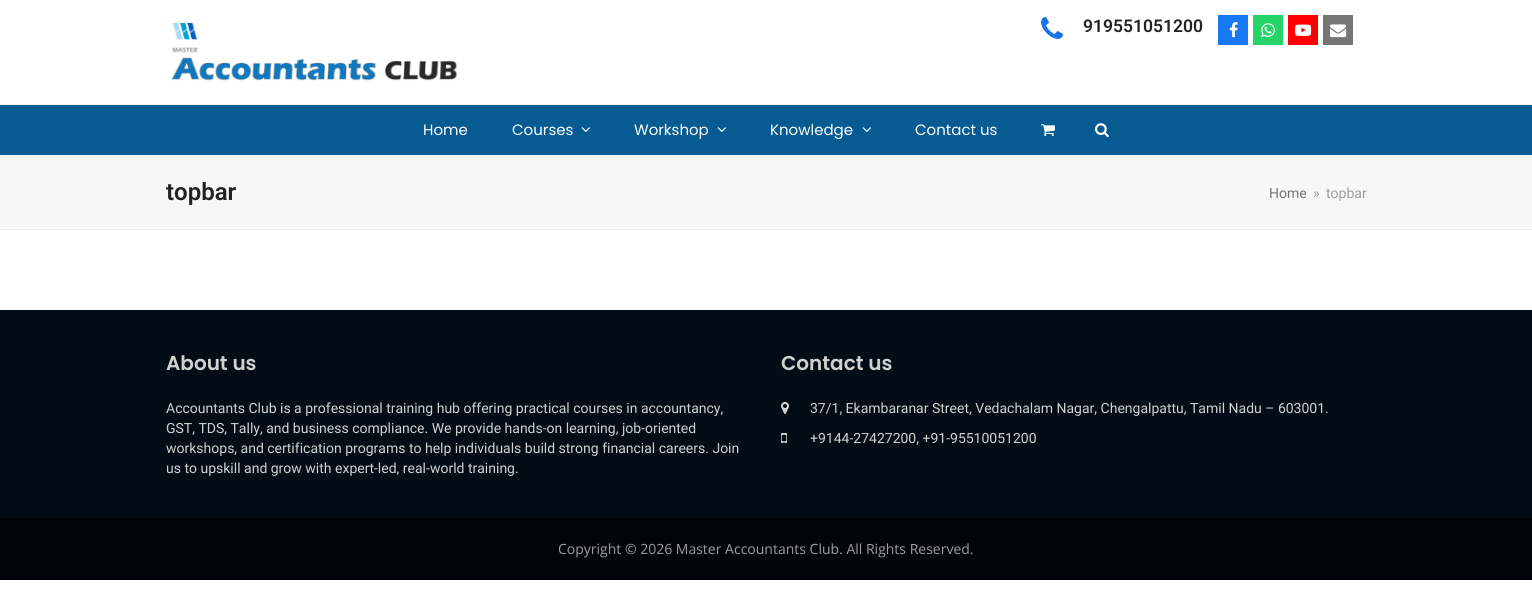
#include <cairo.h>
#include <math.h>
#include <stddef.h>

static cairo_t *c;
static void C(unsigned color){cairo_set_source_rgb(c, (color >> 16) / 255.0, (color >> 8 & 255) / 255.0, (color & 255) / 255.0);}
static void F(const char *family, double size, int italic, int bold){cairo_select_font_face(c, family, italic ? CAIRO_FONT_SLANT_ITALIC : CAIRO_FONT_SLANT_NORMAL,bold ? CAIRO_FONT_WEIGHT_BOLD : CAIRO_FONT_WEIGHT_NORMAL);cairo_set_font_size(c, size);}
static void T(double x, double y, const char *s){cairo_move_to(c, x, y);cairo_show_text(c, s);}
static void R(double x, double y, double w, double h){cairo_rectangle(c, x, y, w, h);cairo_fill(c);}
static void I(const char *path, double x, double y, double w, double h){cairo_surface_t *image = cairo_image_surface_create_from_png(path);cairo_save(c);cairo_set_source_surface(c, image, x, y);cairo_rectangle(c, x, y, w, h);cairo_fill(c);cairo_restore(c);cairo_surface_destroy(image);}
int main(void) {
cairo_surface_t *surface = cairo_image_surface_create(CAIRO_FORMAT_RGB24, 1532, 599);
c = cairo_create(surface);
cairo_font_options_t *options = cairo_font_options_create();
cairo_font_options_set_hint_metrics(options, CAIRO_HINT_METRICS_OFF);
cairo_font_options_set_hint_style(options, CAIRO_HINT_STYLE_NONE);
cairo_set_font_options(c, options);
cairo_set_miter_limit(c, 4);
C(0xffffff);
cairo_paint(c);
I("1.png",171,22,286,59);
I("2.png",1041,17,22,22);
F("Roboto SemiBold",17.5,0,0);
C(0x222222);
T(1083,32,"919551051200");
C(0x1877f2);
R(1218,15,30,30);
I("3.png",1229,22,9,16);
C(0x25d366);
R(1253,15,30,30);
I("4.png",1261,23,14,15);
C(0xff0000);
R(1288,15,30,30);
I("5.png",1295,24,17,12);
C(0x757575);
R(1323,15,30,30);
I("6.png",1330,24,17,14);
C(0x075b93);
R(0,105,1532,50);
C(0xeeeeee);
R(0,104,1532,1);
F("Poppins",15,0,0);
C(0xffffff);
T(423,135,"Home");
T(512,135,"Courses");
I("7.png",581,127,9,5);
T(634,135,"Workshop");
I("7.png",717,127,9,5);
T(770,135,"Knowledge");
I("7.png",862,127,9,5);
T(915,135,"Contact us");
I("8.png",1041,124,14,13);
I("9.png",1095,123,14,15);
C(0xf7f7f7);
R(0,156,1532,73);
C(0xeeeeee);
R(0,155,1532,1);
R(0,229,1532,1);
F("Roboto SemiBold",24,0,0);
C(0x222222);
T(166,200,"topbar");
F("Roboto",14,0,0);
C(0x757575);
T(1269,198,"Home");
C(0x9e9e9e);
T(1313,198,"»");
T(1326,198,"topbar");
C(0x010c17);
R(0,310,1532,208);
F("Poppins SemiBold",20,0,0);
C(0xd1d1d1);
T(166,370,"About us");
F("Roboto",14,0,0);
T(166,413,"Accountants Club is a professional training hub offering practical courses in accountancy,");
T(166,433,"GST, TDS, Tally, and business compliance. We provide hands-on learning, job-oriented");
T(166,453,"workshops, and certification programs to help individuals build strong financial careers. Join");
T(166,473,"us to upskill and grow with expert-led, real-world training.");
F("Poppins SemiBold",20,0,0);
T(781,370,"Contact us");
I("10.png",781,402,8,12);
F("Roboto",14,0,0);
T(810,413,"37/1, Ekambaranar Street, Vedachalam Nagar, Chengalpattu, Tamil Nadu – 603001.");
I("11.png",781,433,6,10);
T(810,443,"+9144-27427200, +91-95510051200");
C(0x00050a);
R(0,518,1532,62);
F("Open Sans",14,0,0);
C(0x9e9e9e);
T(558,554,"Copyright © 2026 Master Accountants Club. All Rights Reserved.");
cairo_surface_write_to_png(surface, "o.png");
cairo_font_options_destroy(options);
cairo_destroy(c);
cairo_surface_destroy(surface);
return 0;
}
